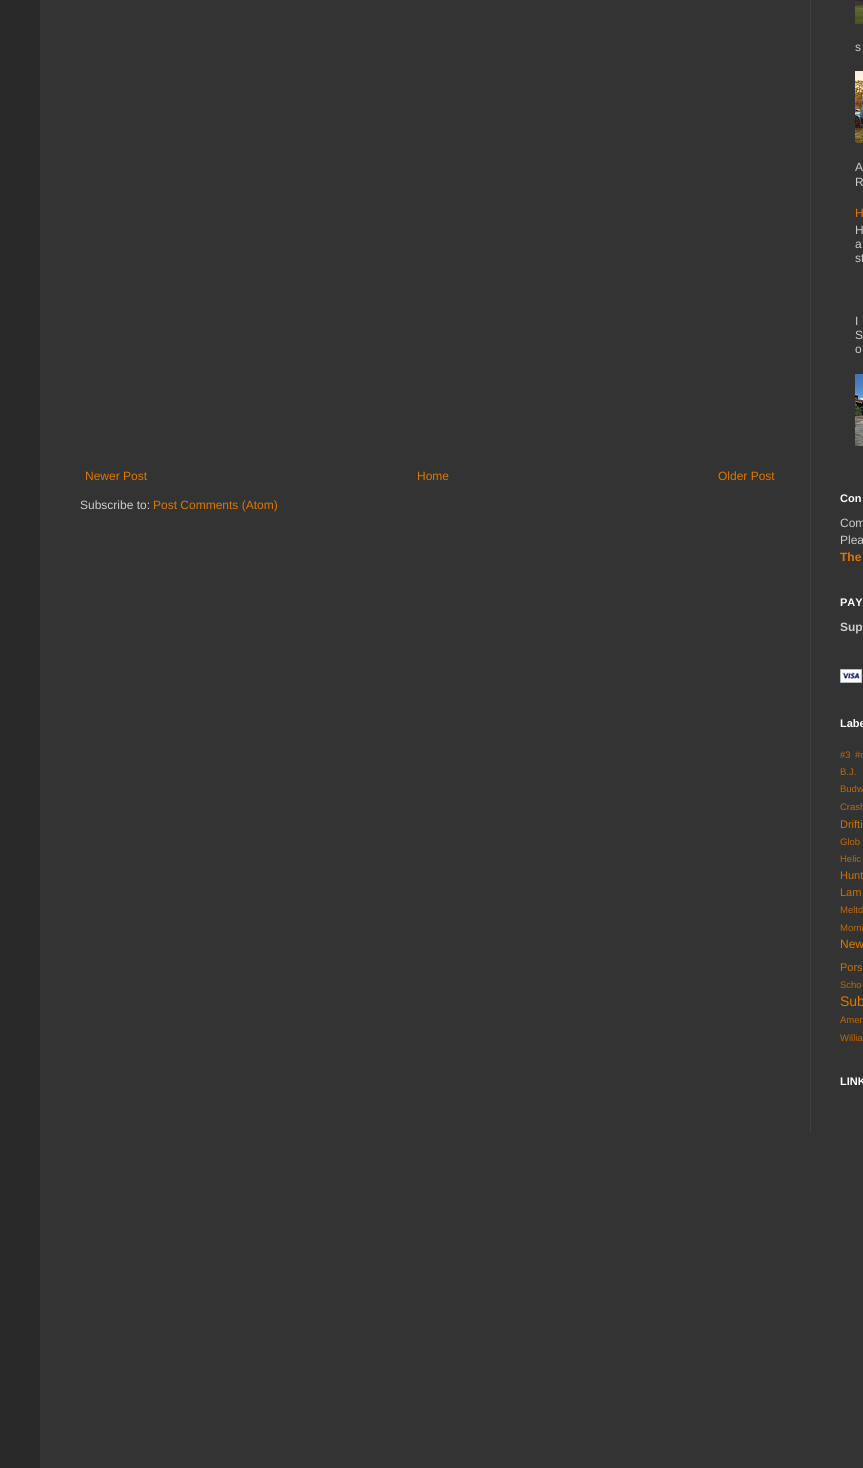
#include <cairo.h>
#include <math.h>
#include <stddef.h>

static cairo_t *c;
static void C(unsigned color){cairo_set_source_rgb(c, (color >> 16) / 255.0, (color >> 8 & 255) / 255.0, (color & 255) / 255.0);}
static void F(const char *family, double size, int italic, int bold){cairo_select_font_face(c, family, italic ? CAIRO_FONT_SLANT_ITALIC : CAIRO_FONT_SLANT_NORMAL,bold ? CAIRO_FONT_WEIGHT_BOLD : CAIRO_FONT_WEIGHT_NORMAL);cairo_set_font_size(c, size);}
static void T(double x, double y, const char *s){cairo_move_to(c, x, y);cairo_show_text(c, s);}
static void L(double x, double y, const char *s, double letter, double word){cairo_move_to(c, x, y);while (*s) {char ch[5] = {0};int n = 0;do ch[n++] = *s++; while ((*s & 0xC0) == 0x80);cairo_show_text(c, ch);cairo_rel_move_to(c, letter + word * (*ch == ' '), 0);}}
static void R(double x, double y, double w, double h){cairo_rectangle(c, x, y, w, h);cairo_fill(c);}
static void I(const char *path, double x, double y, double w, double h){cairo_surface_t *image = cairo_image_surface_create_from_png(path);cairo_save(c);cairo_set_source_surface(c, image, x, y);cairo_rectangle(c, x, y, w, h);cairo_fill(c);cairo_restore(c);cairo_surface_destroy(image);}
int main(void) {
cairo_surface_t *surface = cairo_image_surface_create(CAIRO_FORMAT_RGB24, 863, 1468);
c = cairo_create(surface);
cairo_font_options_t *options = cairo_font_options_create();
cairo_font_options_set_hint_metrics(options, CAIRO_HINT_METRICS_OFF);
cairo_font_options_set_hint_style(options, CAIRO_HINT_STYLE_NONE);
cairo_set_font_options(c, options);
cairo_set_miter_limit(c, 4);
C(0x292929);
cairo_paint(c);
C(0x333333);
R(40,0,823,1468);
C(0x404040);
R(810,0,1,1132);
F("Liberation Sans",12,0,0);
C(0xdd7700);
T(85,480,"Newer Post");
T(417,480,"Home");
T(718,480,"Older Post");
C(0xcccccc);
T(80,509,"Subscribe to:");
C(0xdd7700);
T(153,509,"Post Comments (Atom)");
I("1.png",855,0,8,24);
C(0xcccccc);
T(855,51,"s");
I("2.png",855,71,8,72);
T(855,171,"A");
T(855,186,"R");
C(0xdd7700);
T(855,217,"H");
C(0xcccccc);
T(855,234,"H");
T(855,248,"a");
T(855,262,"st");
T(855,325,"I");
T(855,339,"S");
T(855,353,"o");
I("3.png",855,374,8,72);
F("Liberation Sans",11,0,1);
C(0xffffff);
T(840,502,"Con");
F("Liberation Sans",12,0,0);
C(0xcccccc);
T(840,527,"Com");
T(840,544,"Plea");
F("Liberation Sans",12,0,1);
C(0xdd7700);
T(840,561,"The");
F("Liberation Sans",11,0,1);
C(0xffffff);
T(840,606,"PAY");
F("Liberation Sans",12,0,1);
C(0xcccccc);
T(840,631,"Sup");
I("4.png",840,669,22,14);
F("Liberation Sans",11,0,1);
C(0xffffff);
T(840,727,"Labe");
F("Liberation Sans",9.5,0,0);
C(0xbb690a);
T(840,758,"#3");
T(855,758,"#c");
L(840,775,"B.J.",0,5);
L(840,792,"Budw",0,5);
T(840,810,"Crash");
F("Liberation Sans",11,0,0);
C(0xcc7005);
T(840,828,"Drifti");
F("Liberation Sans",9.5,0,0);
C(0xbb690a);
L(840,845,"Glob",0,1);
T(840,862,"Helic");
F("Liberation Sans",11,0,0);
C(0xcc7005);
T(840,879,"Hunt");
T(840,896,"Lam");
F("Liberation Sans",9.5,0,0);
C(0xbb690a);
T(840,913,"Meltd");
T(840,931,"Morni");
F("Liberation Sans",12,0,0);
C(0xdd7700);
T(840,948,"New");
F("Liberation Sans",11,0,0);
C(0xcc7005);
T(840,971,"Pors");
F("Liberation Sans",9.5,0,0);
C(0xbb690a);
T(840,988,"Scho");
F("Liberation Sans",14,0,0);
C(0xdd7700);
T(840,1006,"Sub");
F("Liberation Sans",9.5,0,0);
C(0xbb690a);
T(840,1023,"Amer");
T(840,1041,"Willia");
F("Liberation Sans",11,0,1);
C(0xffffff);
T(840,1085,"LINK");
cairo_surface_write_to_png(surface, "o.png");
cairo_font_options_destroy(options);
cairo_destroy(c);
cairo_surface_destroy(surface);
return 0;
}
